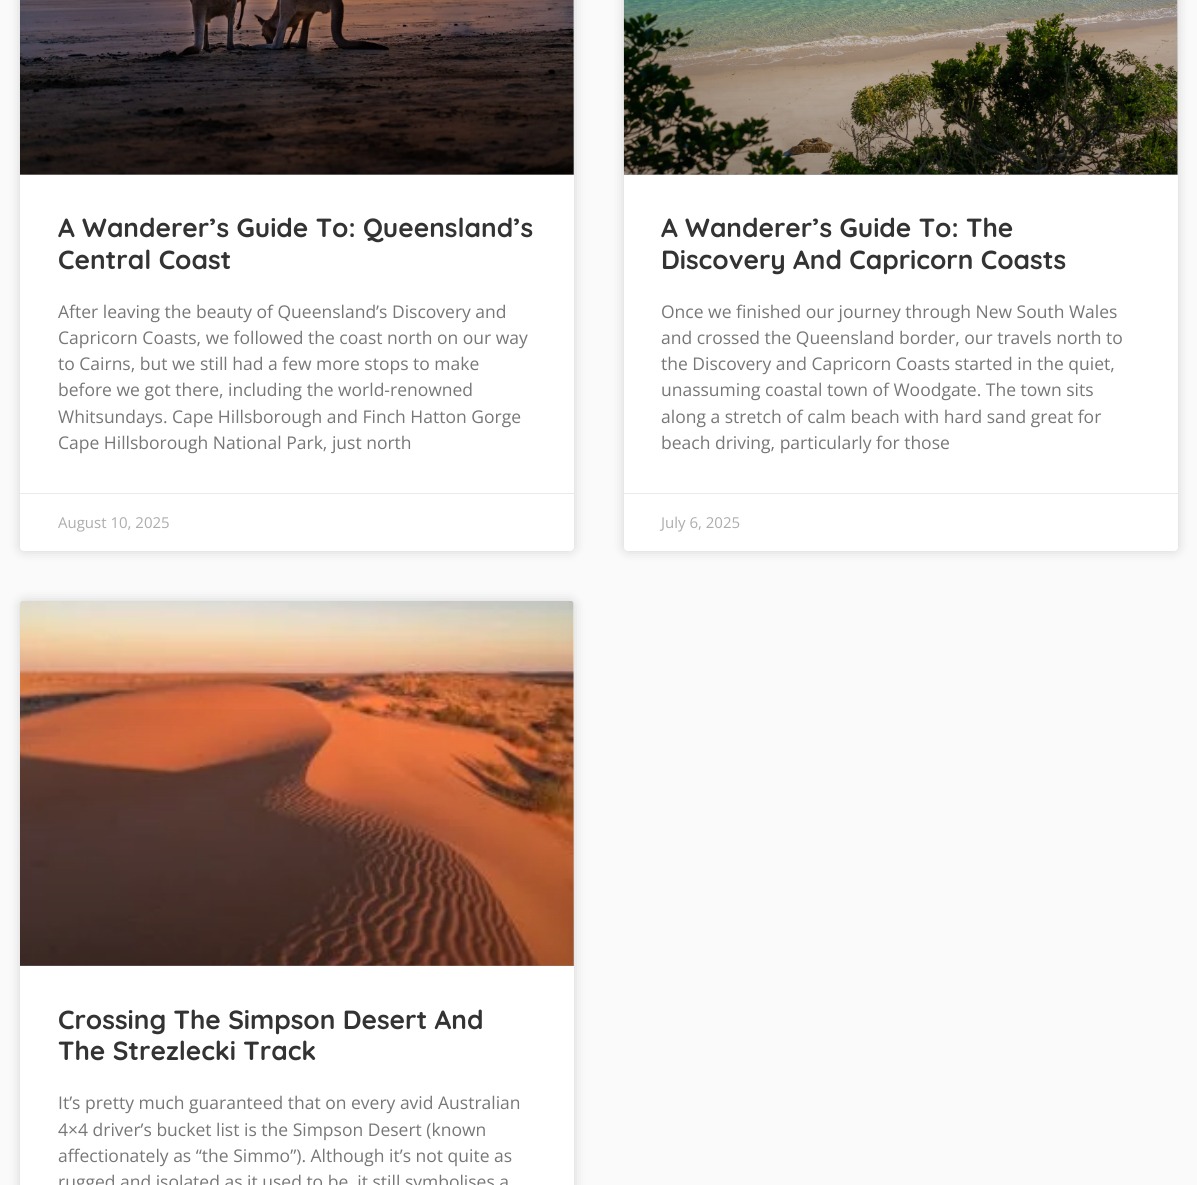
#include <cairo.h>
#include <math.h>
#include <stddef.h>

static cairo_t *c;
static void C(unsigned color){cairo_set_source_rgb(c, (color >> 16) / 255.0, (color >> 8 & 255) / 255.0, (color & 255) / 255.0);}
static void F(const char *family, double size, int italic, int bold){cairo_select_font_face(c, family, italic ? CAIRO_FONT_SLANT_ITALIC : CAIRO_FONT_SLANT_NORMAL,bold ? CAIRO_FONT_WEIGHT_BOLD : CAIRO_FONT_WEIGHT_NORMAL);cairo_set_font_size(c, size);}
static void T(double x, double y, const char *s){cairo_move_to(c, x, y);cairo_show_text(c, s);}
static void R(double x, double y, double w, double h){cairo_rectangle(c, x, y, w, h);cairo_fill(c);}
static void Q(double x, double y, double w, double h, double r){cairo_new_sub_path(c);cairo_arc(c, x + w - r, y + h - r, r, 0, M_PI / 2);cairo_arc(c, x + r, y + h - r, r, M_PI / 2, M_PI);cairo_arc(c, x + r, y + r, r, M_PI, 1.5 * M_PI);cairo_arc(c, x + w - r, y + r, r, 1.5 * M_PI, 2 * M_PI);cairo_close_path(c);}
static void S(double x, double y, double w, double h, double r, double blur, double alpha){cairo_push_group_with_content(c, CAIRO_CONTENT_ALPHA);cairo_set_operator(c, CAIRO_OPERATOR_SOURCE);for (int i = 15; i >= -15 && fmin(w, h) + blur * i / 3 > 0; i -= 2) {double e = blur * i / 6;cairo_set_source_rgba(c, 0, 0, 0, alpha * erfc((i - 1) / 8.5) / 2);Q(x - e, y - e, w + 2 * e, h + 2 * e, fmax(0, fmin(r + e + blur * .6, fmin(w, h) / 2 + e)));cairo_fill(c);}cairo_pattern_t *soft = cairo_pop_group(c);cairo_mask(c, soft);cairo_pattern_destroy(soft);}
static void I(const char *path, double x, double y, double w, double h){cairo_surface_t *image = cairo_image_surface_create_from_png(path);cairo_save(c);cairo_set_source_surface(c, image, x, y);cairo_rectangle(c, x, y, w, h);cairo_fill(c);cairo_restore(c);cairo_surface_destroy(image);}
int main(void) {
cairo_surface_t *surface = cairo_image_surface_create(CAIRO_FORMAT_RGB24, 1197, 1185);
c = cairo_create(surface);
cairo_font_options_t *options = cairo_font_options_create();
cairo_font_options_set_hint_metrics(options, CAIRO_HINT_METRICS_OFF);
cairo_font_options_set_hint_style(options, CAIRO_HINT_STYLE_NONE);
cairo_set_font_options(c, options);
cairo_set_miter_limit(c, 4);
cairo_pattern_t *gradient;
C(0xfafafa);
cairo_paint(c);
C(0x000000);
S(20,-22,554,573,4,6,.15);
C(0xffffff);
Q(20,-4,554,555,4);
cairo_fill(c);
I("1.png",20,0,554,175);
gradient = cairo_pattern_create_linear(297,175,297,-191);
cairo_pattern_add_color_stop_rgba(gradient,0,0,0,0,.35);
cairo_pattern_add_color_stop_rgba(gradient,.75,0,0,0,0);
cairo_set_source(c,gradient);
cairo_pattern_destroy(gradient);
R(20,0,554,175);
F("Quicksand",26.25,0,1);
C(0x333333);
T(58,237,"A Wanderer’s Guide To: Queensland’s");
T(58,269,"Central Coast");
F("Open Sans",17.5,0,0);
C(0x777777);
T(58,318,"After leaving the beauty of Queensland’s Discovery and");
T(58,344,"Capricorn Coasts, we followed the coast north on our way");
T(58,370,"to Cairns, but we still had a few more stops to make");
T(58,396,"before we got there, including the world-renowned");
T(58,423,"Whitsundays. Cape Hillsborough and Finch Hatton Gorge");
T(58,449,"Cape Hillsborough National Park, just north");
C(0xeaeaea);
R(20,493,554,1);
F("Open Sans",15,0,0);
C(0xadadad);
T(58,528,"August 10, 2025");
C(0x000000);
S(624,-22,554,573,4,6,.15);
C(0xffffff);
Q(624,-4,554,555,4);
cairo_fill(c);
I("2.png",623,0,555,175);
gradient = cairo_pattern_create_linear(901,175,901,-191);
cairo_pattern_add_color_stop_rgba(gradient,0,0,0,0,.35);
cairo_pattern_add_color_stop_rgba(gradient,.75,0,0,0,0);
cairo_set_source(c,gradient);
cairo_pattern_destroy(gradient);
R(624,0,554,175);
F("Quicksand",26.25,0,1);
C(0x333333);
T(661,237,"A Wanderer’s Guide To: The");
T(661,269,"Discovery And Capricorn Coasts");
F("Open Sans",17.5,0,0);
C(0x777777);
T(661,318,"Once we finished our journey through New South Wales");
T(661,344,"and crossed the Queensland border, our travels north to");
T(661,370,"the Discovery and Capricorn Coasts started in the quiet,");
T(661,396,"unassuming coastal town of Woodgate. The town sits");
T(661,423,"along a stretch of calm beach with hard sand great for");
T(661,449,"beach driving, particularly for those");
C(0xeaeaea);
R(624,493,554,1);
F("Open Sans",15,0,0);
C(0xadadad);
T(661,528,"July 6, 2025");
C(0x000000);
S(20,601,554,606,4,6,.15);
C(0xffffff);
Q(20,601,554,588,4);
cairo_fill(c);
I("3.png",20,601,554,365);
gradient = cairo_pattern_create_linear(297,966,297,601);
cairo_pattern_add_color_stop_rgba(gradient,0,0,0,0,.35);
cairo_pattern_add_color_stop_rgba(gradient,.75,0,0,0,0);
cairo_set_source(c,gradient);
cairo_pattern_destroy(gradient);
R(20,709,554,257);
F("Quicksand",26.25,0,1);
C(0x333333);
T(58,1029,"Crossing The Simpson Desert And");
T(58,1060,"The Strezlecki Track");
F("Open Sans",17.5,0,0);
C(0x777777);
T(58,1109,"It’s pretty much guaranteed that on every avid Australian");
T(58,1136,"4×4 driver’s bucket list is the Simpson Desert (known");
T(58,1162,"affectionately as “the Simmo”). Although it’s not quite as");
T(58,1188,"rugged and isolated as it used to be, it still symbolises a");
cairo_surface_write_to_png(surface, "o.png");
cairo_font_options_destroy(options);
cairo_destroy(c);
cairo_surface_destroy(surface);
return 0;
}
